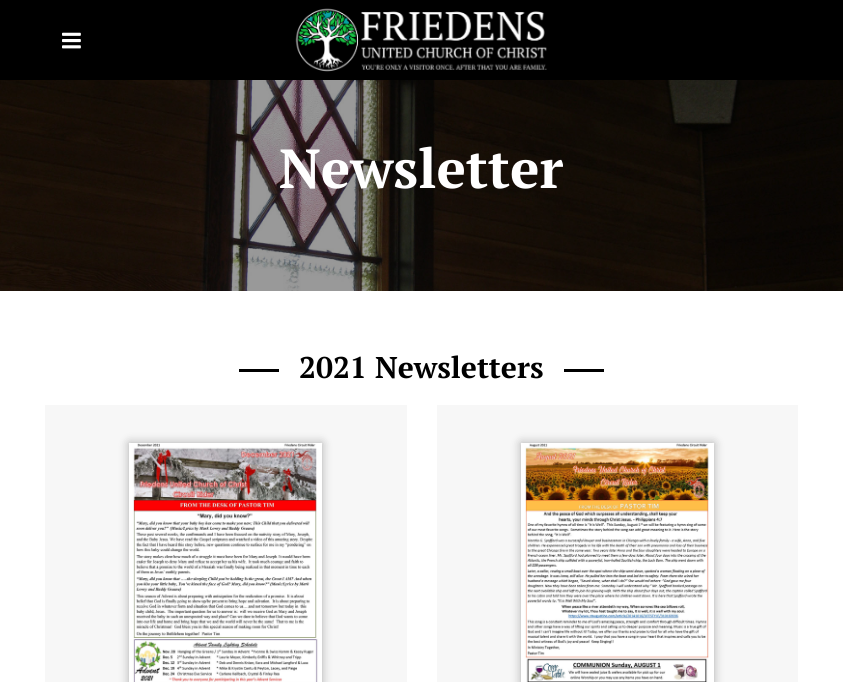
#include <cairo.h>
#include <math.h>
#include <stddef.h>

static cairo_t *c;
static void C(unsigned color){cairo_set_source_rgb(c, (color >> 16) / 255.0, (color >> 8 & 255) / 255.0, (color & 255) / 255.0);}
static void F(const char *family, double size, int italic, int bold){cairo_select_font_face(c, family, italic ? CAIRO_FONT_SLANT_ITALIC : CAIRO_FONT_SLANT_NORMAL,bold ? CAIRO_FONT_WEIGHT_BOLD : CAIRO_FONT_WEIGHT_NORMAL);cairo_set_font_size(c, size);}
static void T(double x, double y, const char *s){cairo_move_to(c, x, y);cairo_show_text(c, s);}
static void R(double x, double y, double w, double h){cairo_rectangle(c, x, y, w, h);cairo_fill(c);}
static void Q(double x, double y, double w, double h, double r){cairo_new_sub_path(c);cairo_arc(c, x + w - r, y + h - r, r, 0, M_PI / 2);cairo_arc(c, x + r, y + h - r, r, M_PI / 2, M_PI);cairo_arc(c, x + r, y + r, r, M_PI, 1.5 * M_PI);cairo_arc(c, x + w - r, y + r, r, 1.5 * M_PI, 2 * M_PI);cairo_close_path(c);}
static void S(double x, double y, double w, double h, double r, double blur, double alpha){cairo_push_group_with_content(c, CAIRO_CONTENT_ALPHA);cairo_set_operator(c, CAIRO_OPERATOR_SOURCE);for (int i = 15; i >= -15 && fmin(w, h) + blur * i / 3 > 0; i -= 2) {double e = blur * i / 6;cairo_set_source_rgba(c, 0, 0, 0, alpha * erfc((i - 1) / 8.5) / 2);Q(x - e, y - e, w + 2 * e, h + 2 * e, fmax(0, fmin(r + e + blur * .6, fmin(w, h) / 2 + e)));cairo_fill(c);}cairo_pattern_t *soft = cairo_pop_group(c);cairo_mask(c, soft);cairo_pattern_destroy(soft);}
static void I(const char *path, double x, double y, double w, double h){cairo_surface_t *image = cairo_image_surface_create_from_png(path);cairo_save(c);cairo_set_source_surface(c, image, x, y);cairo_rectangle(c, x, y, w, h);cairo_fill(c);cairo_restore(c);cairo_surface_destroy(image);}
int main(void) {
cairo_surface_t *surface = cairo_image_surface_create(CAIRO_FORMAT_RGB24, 843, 682);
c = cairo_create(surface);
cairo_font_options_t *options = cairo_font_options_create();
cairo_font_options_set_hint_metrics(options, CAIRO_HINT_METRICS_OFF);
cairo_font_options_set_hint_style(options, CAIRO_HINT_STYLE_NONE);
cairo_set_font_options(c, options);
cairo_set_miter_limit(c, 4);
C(0xffffff);
cairo_paint(c);
C(0x000000);
R(0,0,843,80);
I("1.png",62,32,19,17);
I("2.png",295,8,252,64);
I("3.png",0,80,843,211);
F("PT Serif",55,0,1);
C(0xffffff);
T(279,188,"Newsletter");
C(0x000000);
R(239,369,40,3);
F("PT Serif",30,0,1);
T(299,378,"2021 Newsletters");
R(564,369,40,3);
C(0xf7f7f7);
R(45,405,362,277);
C(0x000000);
S(129,443,193,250,0,5,.3);
I("4.png",129,443,193,239);
C(0xf7f7f7);
R(437,405,361,277);
C(0x000000);
S(521,443,193,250,0,5,.3);
I("5.png",521,443,193,239);
cairo_surface_write_to_png(surface, "o.png");
cairo_font_options_destroy(options);
cairo_destroy(c);
cairo_surface_destroy(surface);
return 0;
}
